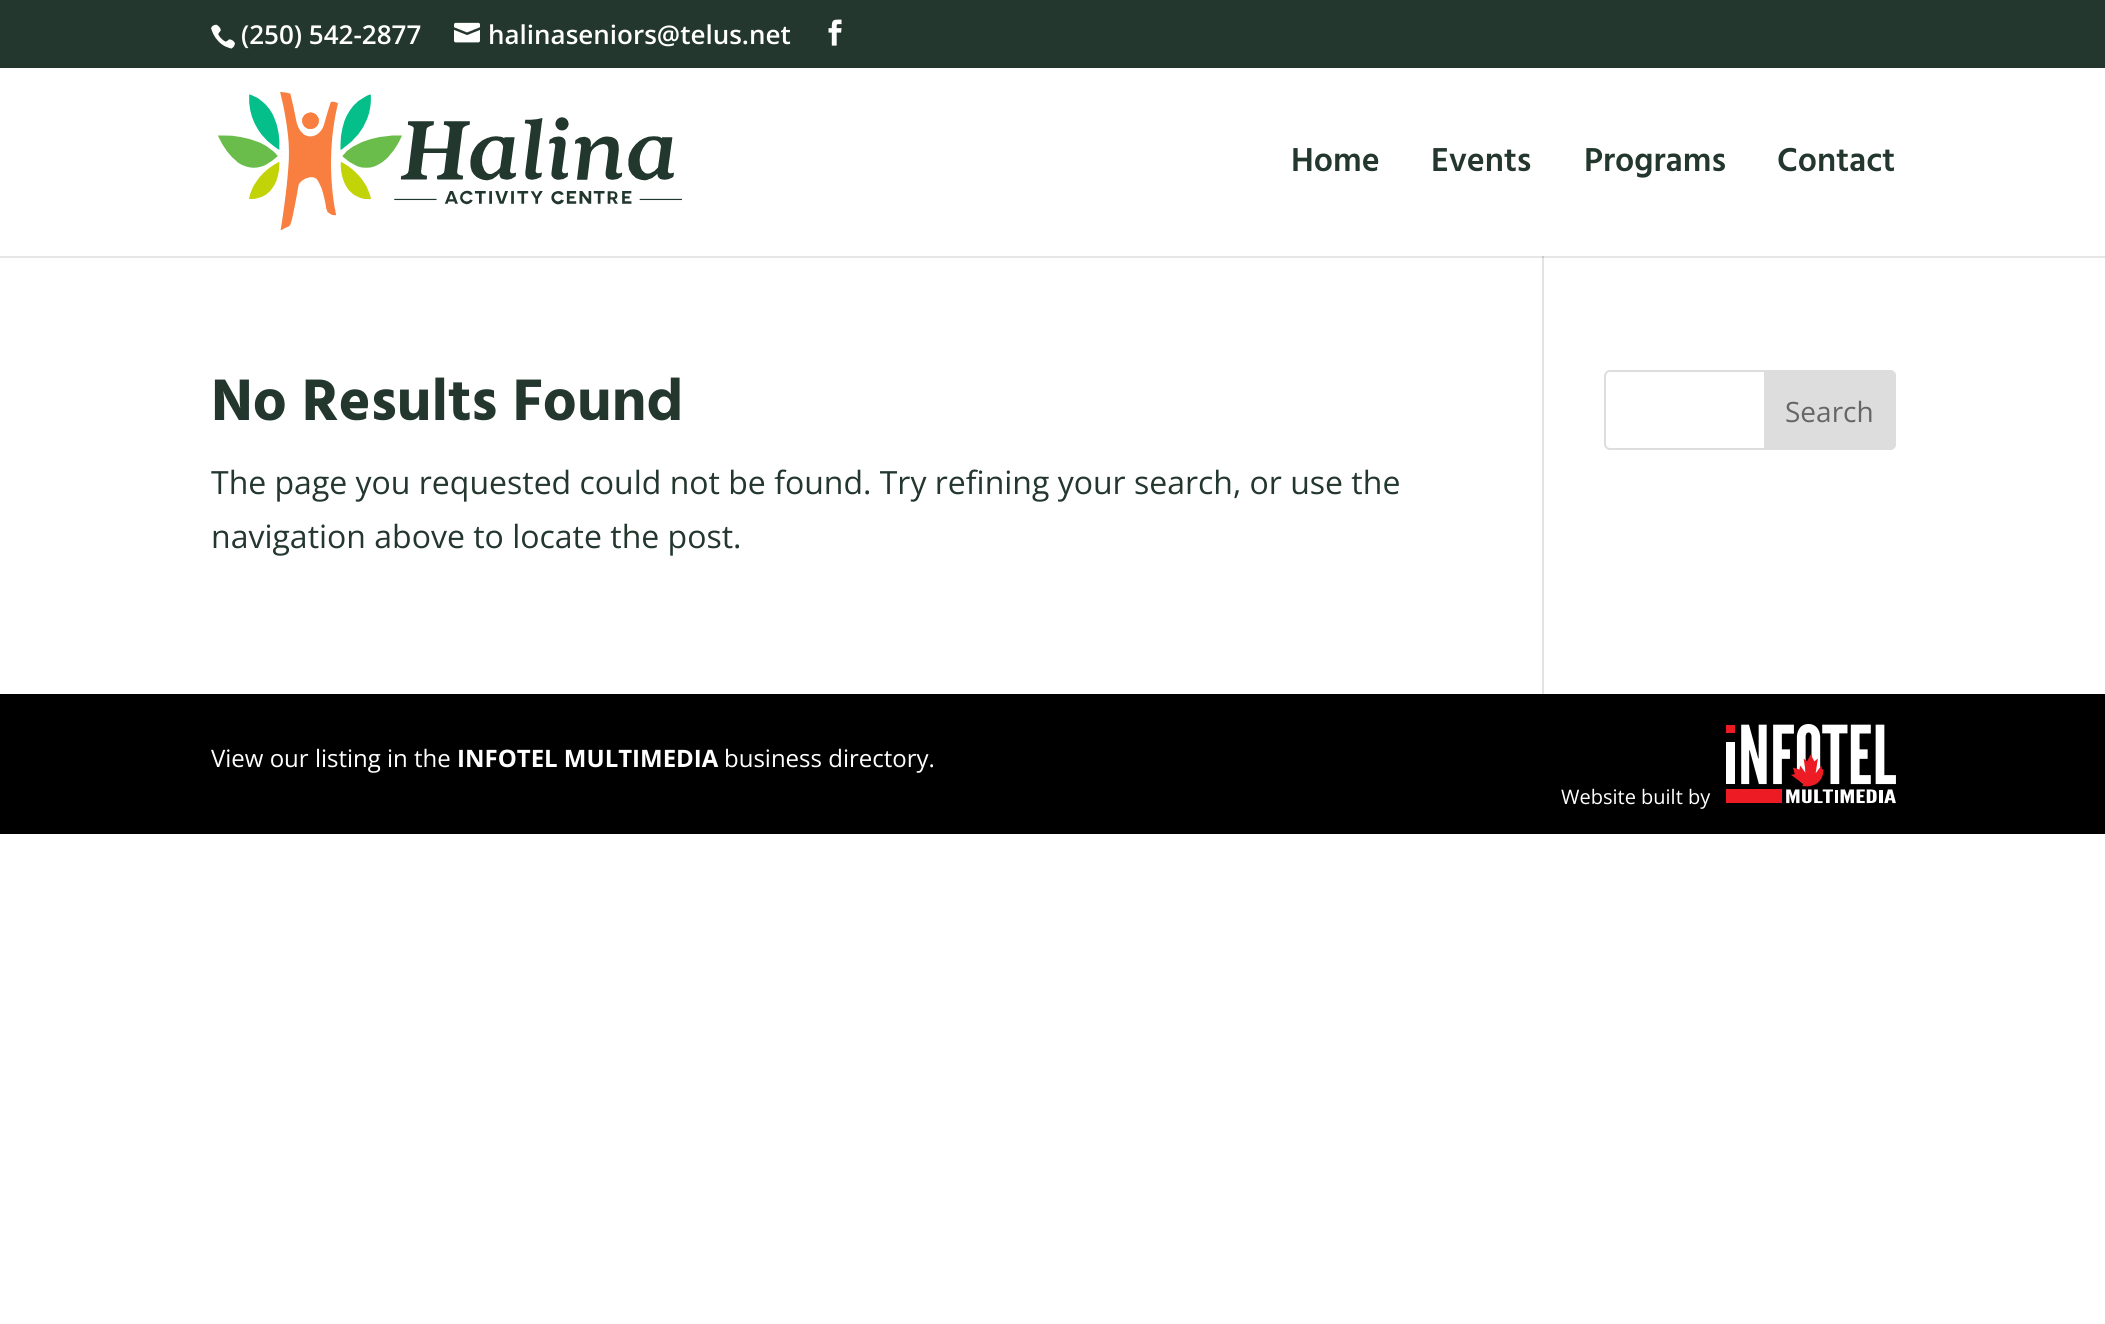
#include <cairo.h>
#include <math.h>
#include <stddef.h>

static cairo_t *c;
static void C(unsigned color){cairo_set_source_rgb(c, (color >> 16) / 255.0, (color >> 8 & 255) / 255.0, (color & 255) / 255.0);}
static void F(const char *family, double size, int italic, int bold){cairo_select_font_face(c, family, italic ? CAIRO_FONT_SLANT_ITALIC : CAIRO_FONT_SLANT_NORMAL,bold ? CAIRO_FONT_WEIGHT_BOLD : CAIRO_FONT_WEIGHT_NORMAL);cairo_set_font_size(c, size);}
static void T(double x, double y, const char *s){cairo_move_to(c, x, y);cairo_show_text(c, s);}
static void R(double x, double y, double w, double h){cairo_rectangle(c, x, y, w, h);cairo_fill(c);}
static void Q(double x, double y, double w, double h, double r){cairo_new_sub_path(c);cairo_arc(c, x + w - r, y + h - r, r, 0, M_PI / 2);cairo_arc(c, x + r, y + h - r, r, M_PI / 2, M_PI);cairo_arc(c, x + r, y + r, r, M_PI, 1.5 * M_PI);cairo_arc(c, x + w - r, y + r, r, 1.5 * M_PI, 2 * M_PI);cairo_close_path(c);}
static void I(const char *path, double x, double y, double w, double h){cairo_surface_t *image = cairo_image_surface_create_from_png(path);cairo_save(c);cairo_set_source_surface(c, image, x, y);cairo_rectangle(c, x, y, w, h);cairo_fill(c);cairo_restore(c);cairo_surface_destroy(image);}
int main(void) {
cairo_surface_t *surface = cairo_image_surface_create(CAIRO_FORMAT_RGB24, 2105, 1324);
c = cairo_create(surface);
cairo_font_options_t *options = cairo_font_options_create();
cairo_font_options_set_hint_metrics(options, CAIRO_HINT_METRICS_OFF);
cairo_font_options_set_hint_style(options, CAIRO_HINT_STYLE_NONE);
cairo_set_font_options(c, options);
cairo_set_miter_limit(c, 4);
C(0xffffff);
cairo_paint(c);
C(0xe6e6e6);
R(0,256,2105,2);
C(0x23372e);
R(0,0,2105,68);
I("1.png",211,24,24,25);
F("Open Sans SemiBold",26,0,0);
C(0xffffff);
T(241,44,"(250) 542-2877");
I("2.png",454,22,26,21);
T(488,44,"halinaseniors@telus.net");
I("3.png",828,19,14,27);
C(0xe2e2e2);
R(1542,254,2,440);
C(0xffffff);
R(1542,254,2,2);
I("4.png",218,92,464,138);
F("Hind Siliguri SemiBold",34,0,0);
C(0x23372e);
T(1291,171,"Home");
T(1431,171,"Events");
T(1584,171,"Programs");
T(1777,171,"Contact");
C(0xcbcbcb);
R(1542,256,2,2);
F("Hind Siliguri",60,0,1);
C(0x23372e);
T(211,420,"No Results Found");
F("Open Sans",32,0,0);
T(211,494,"The page you requested could not be found. Try refining your search, or use the");
T(211,548,"navigation above to locate the post.");
Q(1605,371,290,78,5);
C(0xdddddd);
cairo_stroke(c);
cairo_new_path(c);
cairo_move_to(c,1765,371);
cairo_line_to(c,1890,371);
cairo_curve_to(c,1893,371,1895,373,1895,376);
cairo_line_to(c,1895,444);
cairo_curve_to(c,1895,447,1893,449,1890,449);
cairo_line_to(c,1765,449);
cairo_close_path(c);
cairo_fill_preserve(c);
cairo_stroke(c);
F("Open Sans",28,0,0);
C(0x666666);
T(1785,422,"Search");
C(0x000000);
R(0,694,2105,140);
F("Open Sans",24,0,0);
C(0xffffff);
T(211,767,"View our listing in the");
F("Open Sans",24,0,1);
T(457,767,"INFOTEL MULTIMEDIA");
F("Open Sans",24,0,0);
T(724,767,"business directory.");
F("Open Sans",20,0,0);
T(1561,804,"Website built by");
I("5.png",1726,724,170,80);
cairo_surface_write_to_png(surface, "o.png");
cairo_font_options_destroy(options);
cairo_destroy(c);
cairo_surface_destroy(surface);
return 0;
}
